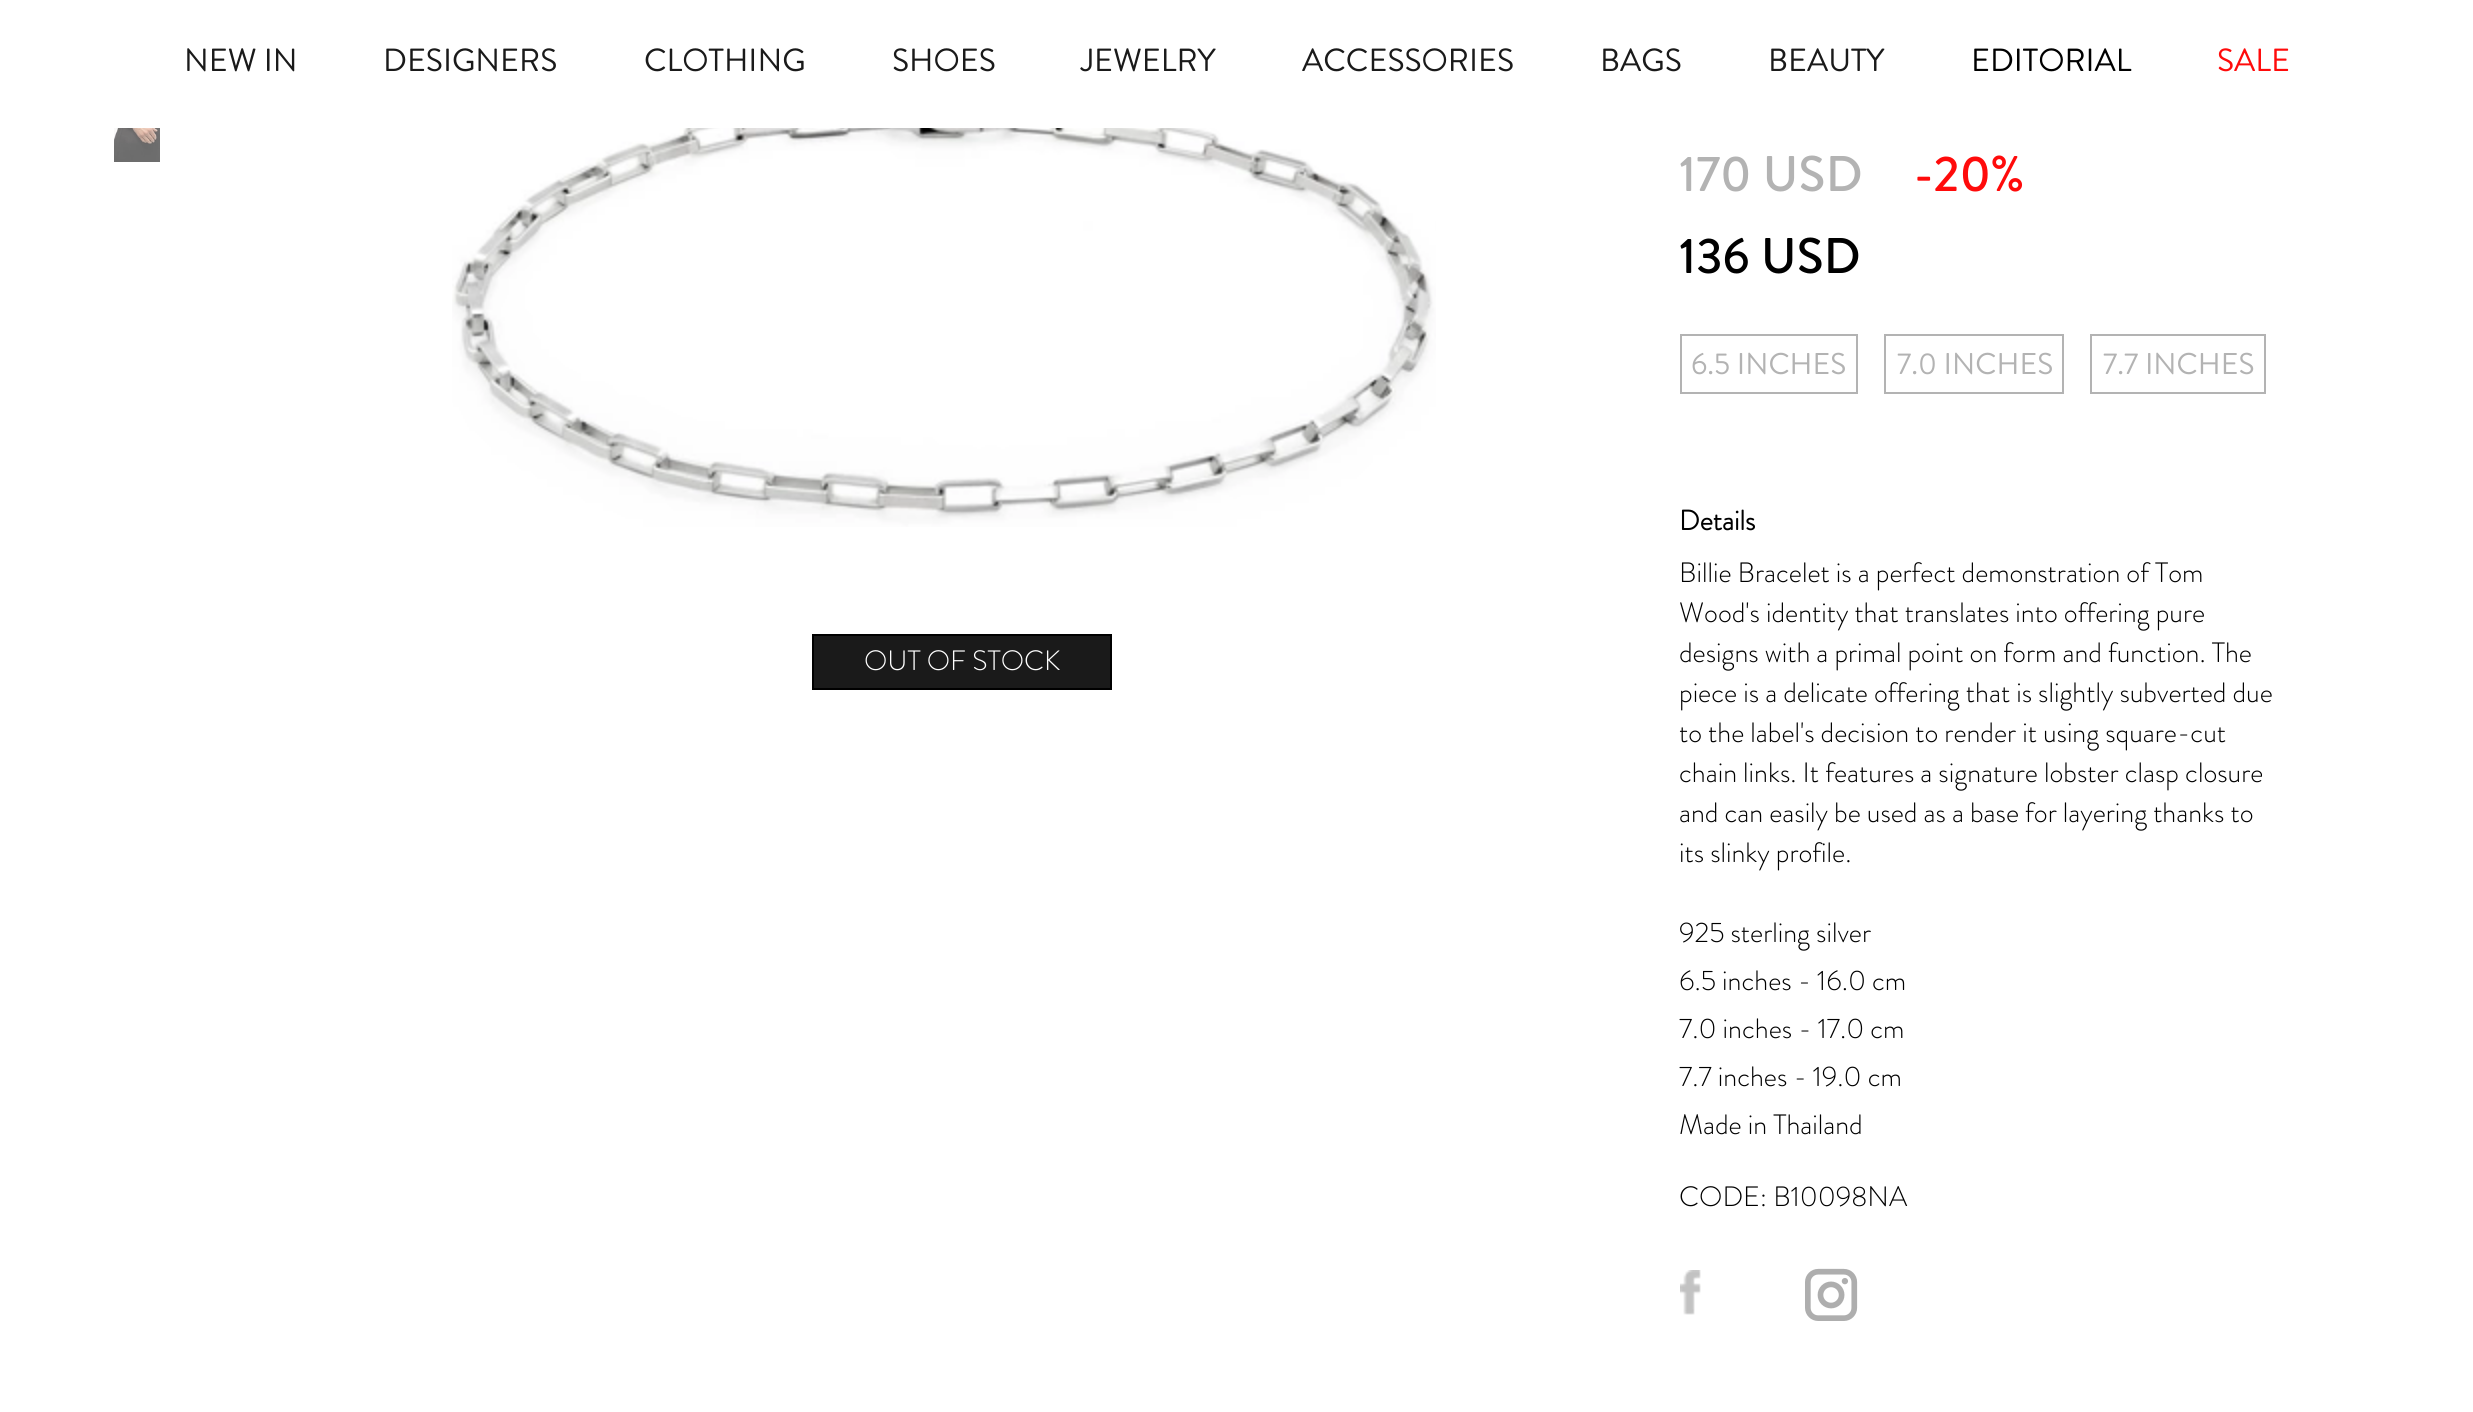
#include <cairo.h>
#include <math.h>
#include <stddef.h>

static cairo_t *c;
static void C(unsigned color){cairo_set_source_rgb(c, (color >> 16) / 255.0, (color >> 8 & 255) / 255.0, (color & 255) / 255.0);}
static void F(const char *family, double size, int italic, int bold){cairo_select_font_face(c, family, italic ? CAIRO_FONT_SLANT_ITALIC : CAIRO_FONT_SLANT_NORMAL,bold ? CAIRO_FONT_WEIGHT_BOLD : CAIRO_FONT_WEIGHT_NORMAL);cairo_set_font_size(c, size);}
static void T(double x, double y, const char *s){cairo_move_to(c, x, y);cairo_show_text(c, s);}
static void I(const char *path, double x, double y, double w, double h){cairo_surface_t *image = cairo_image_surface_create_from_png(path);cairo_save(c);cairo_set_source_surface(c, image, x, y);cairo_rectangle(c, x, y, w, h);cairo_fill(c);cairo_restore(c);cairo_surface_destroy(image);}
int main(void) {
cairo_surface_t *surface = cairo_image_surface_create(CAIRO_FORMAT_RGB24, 2473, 1412);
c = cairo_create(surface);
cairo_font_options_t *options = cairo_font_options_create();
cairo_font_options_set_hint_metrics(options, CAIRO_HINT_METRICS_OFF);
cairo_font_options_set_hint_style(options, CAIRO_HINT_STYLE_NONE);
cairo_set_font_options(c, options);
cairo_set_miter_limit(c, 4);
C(0xffffff);
cairo_paint(c);
F("Brandon Grotesque",32,0,0);
C(0x1a1a1a);
T(184,71,"NEW IN");
T(383,71,"DESIGNERS");
T(644,71,"CLOTHING");
T(892,71,"SHOES");
T(1081,71,"JEWELRY");
T(1302,71,"ACCESSORIES");
T(1600,71,"BAGS");
T(1768,71,"BEAUTY");
C(0x000000);
T(1971,71,"EDITORIAL");
C(0xff0b0b);
T(2217,71,"SALE");
I("1.png",114,128,46,34);
I("2.png",452,128,984,399);
C(0x1a1a1a);
cairo_rectangle(c,813,635,298,54);
cairo_fill_preserve(c);
C(0x000000);
cairo_stroke(c);
F("Brandon Grotesque Light",28,0,0);
C(0xffffff);
T(864,670,"OUT OF STOCK");
F("Brandon Grotesque Medium",50,0,0);
C(0xb3b3b3);
T(1679,191,"170 USD");
C(0xff0b0b);
T(1914,191,"-20%");
C(0x000000);
T(1679,273,"136 USD");
cairo_rectangle(c,1681,335,176,58);
C(0xb3b3b3);
cairo_stroke(c);
F("Brandon Grotesque",30,0,0);
T(1691,374,"6.5 INCHES");
cairo_rectangle(c,1885,335,178,58);
cairo_stroke(c);
T(1897,374,"7.0 INCHES");
cairo_rectangle(c,2091,335,174,58);
cairo_stroke(c);
T(2103,374,"7.7 INCHES");
F("Brandon Grotesque",28,0,1);
C(0x000000);
T(1679,530,"Details");
F("Brandon Grotesque Light",28,0,0);
T(1679,582,"Billie Bracelet is a perfect demonstration of Tom");
T(1679,622,"Wood's identity that translates into offering pure");
T(1679,662,"designs with a primal point on form and function. The");
T(1679,702,"piece is a delicate offering that is slightly subverted due");
T(1679,742,"to the label's decision to render it using square-cut");
T(1679,782,"chain links. It features a signature lobster clasp closure");
T(1679,822,"and can easily be used as a base for layering thanks to");
T(1679,862,"its slinky profile.");
T(1679,942,"925 sterling silver");
T(1679,990,"6.5 inches - 16.0 cm");
T(1679,1038,"7.0 inches - 17.0 cm");
T(1679,1086,"7.7 inches - 19.0 cm");
T(1679,1134,"Made in Thailand");
T(1679,1206,"CODE: B10098NA");
I("3.png",1680,1270,21,45);
I("4.png",1805,1268,53,53);
cairo_surface_write_to_png(surface, "o.png");
cairo_font_options_destroy(options);
cairo_destroy(c);
cairo_surface_destroy(surface);
return 0;
}
